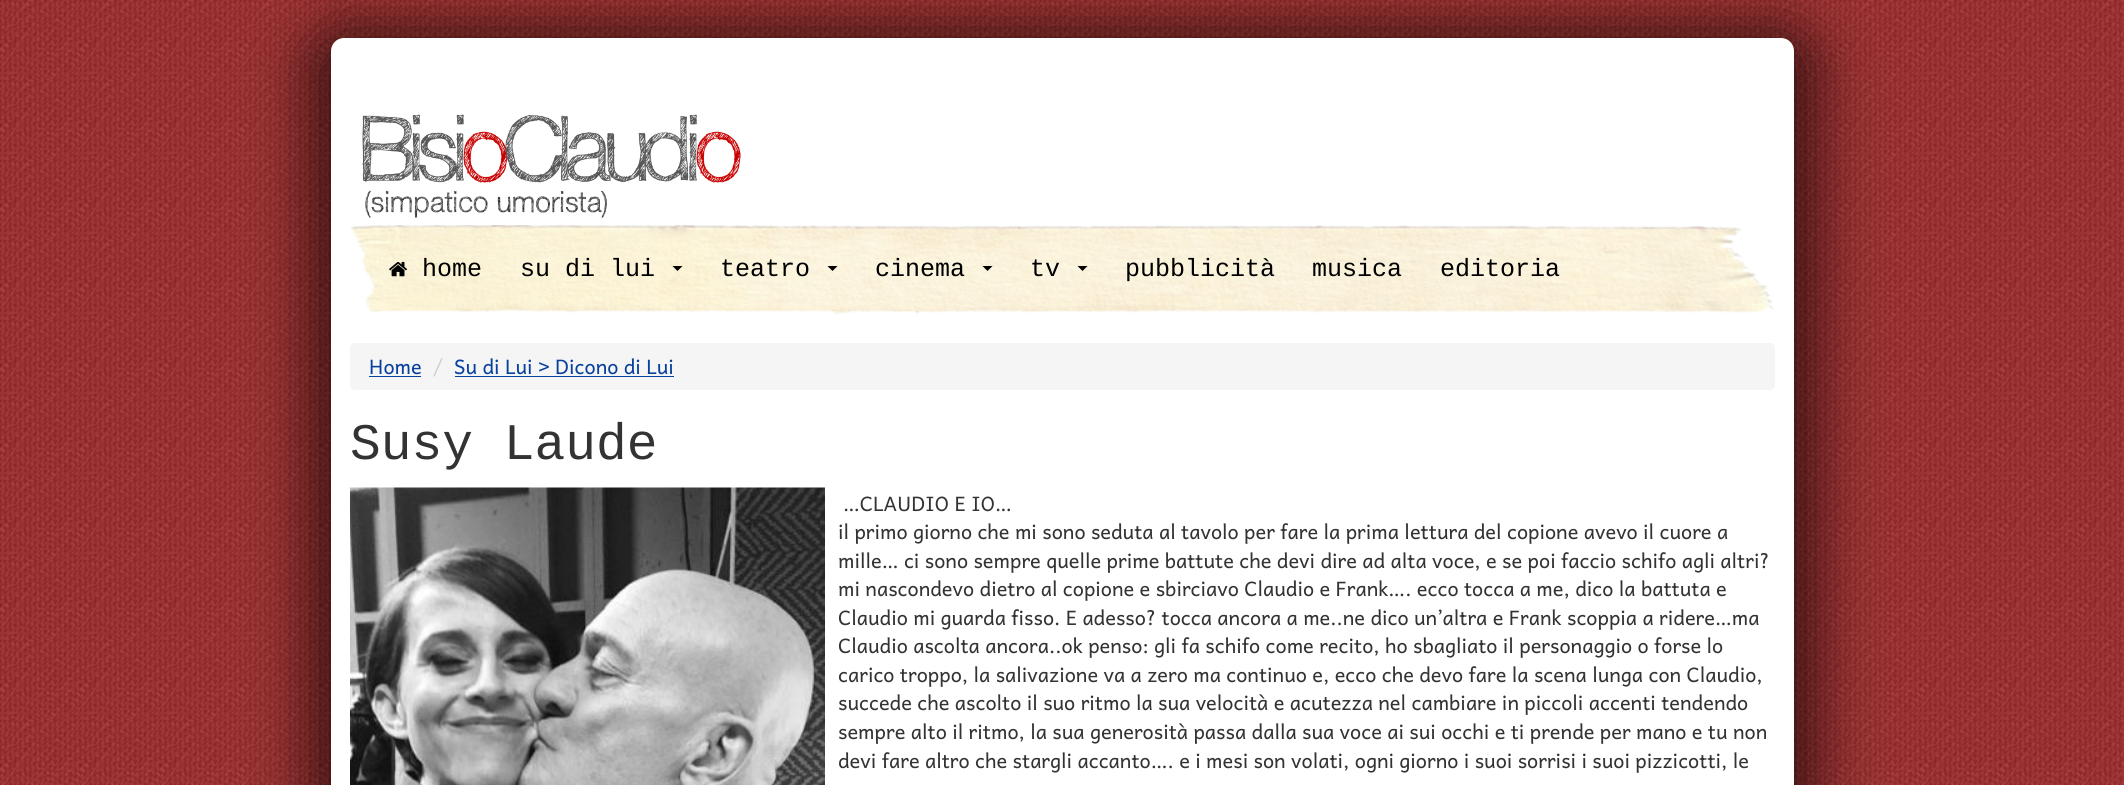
#include <cairo.h>
#include <math.h>
#include <stddef.h>

static cairo_t *c;
static void C(unsigned color){cairo_set_source_rgb(c, (color >> 16) / 255.0, (color >> 8 & 255) / 255.0, (color & 255) / 255.0);}
static void F(const char *family, double size, int italic, int bold){cairo_select_font_face(c, family, italic ? CAIRO_FONT_SLANT_ITALIC : CAIRO_FONT_SLANT_NORMAL,bold ? CAIRO_FONT_WEIGHT_BOLD : CAIRO_FONT_WEIGHT_NORMAL);cairo_set_font_size(c, size);}
static void T(double x, double y, const char *s){cairo_move_to(c, x, y);cairo_show_text(c, s);}
static void R(double x, double y, double w, double h){cairo_rectangle(c, x, y, w, h);cairo_fill(c);}
static void Q(double x, double y, double w, double h, double r){cairo_new_sub_path(c);cairo_arc(c, x + w - r, y + h - r, r, 0, M_PI / 2);cairo_arc(c, x + r, y + h - r, r, M_PI / 2, M_PI);cairo_arc(c, x + r, y + r, r, M_PI, 1.5 * M_PI);cairo_arc(c, x + w - r, y + r, r, 1.5 * M_PI, 2 * M_PI);cairo_close_path(c);}
static void S(double x, double y, double w, double h, double r, double blur, double alpha){cairo_push_group_with_content(c, CAIRO_CONTENT_ALPHA);cairo_set_operator(c, CAIRO_OPERATOR_SOURCE);for (int i = 15; i >= -15 && fmin(w, h) + blur * i / 3 > 0; i -= 2) {double e = blur * i / 6;cairo_set_source_rgba(c, 0, 0, 0, alpha * erfc((i - 1) / 8.5) / 2);Q(x - e, y - e, w + 2 * e, h + 2 * e, fmax(0, fmin(r + e + blur * .6, fmin(w, h) / 2 + e)));cairo_fill(c);}cairo_pattern_t *soft = cairo_pop_group(c);cairo_mask(c, soft);cairo_pattern_destroy(soft);}
static void I(const char *path, double x, double y, double w, double h){cairo_surface_t *image = cairo_image_surface_create_from_png(path);cairo_save(c);cairo_set_source_surface(c, image, x, y);cairo_rectangle(c, x, y, w, h);cairo_fill(c);cairo_restore(c);cairo_surface_destroy(image);}
int main(void) {
cairo_surface_t *surface = cairo_image_surface_create(CAIRO_FORMAT_RGB24, 2124, 785);
c = cairo_create(surface);
cairo_font_options_t *options = cairo_font_options_create();
cairo_font_options_set_hint_metrics(options, CAIRO_HINT_METRICS_OFF);
cairo_font_options_set_hint_style(options, CAIRO_HINT_STYLE_NONE);
cairo_set_font_options(c, options);
cairo_set_miter_limit(c, 4);
C(0xc80000);
cairo_paint(c);
I("1.png",0,0,2124,785);
C(0x000000);
S(313,31,1500,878,31,31,.65);
C(0xffffff);
Q(331,38,1463,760,13);
cairo_fill(c);
I("2.png",362,114,379,104);
I("3.png",351,225,1423,89);
I("4.png",389,261,18,16);
F("Liberation Mono",25,0,0);
C(0x000000);
T(422,276,"home");
T(520,276,"su di lui");
cairo_new_path(c);
cairo_move_to(c,672.5,266);
cairo_line_to(c,682.5,266);
cairo_line_to(c,677.5,271);
cairo_close_path(c);
cairo_fill(c);
T(720,276,"teatro");
cairo_new_path(c);
cairo_move_to(c,827.5,266);
cairo_line_to(c,837.5,266);
cairo_line_to(c,832.5,271);
cairo_close_path(c);
cairo_fill(c);
T(875,276,"cinema");
cairo_new_path(c);
cairo_move_to(c,982.5,266);
cairo_line_to(c,992.5,266);
cairo_line_to(c,987.5,271);
cairo_close_path(c);
cairo_fill(c);
T(1030,276,"tv");
cairo_new_path(c);
cairo_move_to(c,1077.5,266);
cairo_line_to(c,1087.5,266);
cairo_line_to(c,1082.5,271);
cairo_close_path(c);
cairo_fill(c);
T(1125,276,"pubblicità");
T(1312,276,"musica");
T(1440,276,"editoria");
C(0xf5f5f5);
Q(350,343,1425,47,5);
cairo_fill(c);
F("Andika",20,0,0);
C(0x07419d);
T(369,374,"Home");
R(369,376,52,1);
C(0xcccccc);
T(433,374,"/");
C(0x07419d);
T(454,374,"Su di Lui > Dicono di Lui");
R(455,376,219,1);
F("Liberation Mono",51.25,0,0);
C(0x333333);
T(350,459,"Susy Laude");
I("5.png",350,487,475,298);
F("Andika",20,0,0);
T(843,511,"…CLAUDIO E IO…");
T(838,539,"il primo giorno che mi sono seduta al tavolo per fare la prima lettura del copione avevo il cuore a");
T(838,568,"mille… ci sono sempre quelle prime battute che devi dire ad alta voce, e se poi faccio schifo agli altri?");
T(838,596,"mi nascondevo dietro al copione e sbirciavo Claudio e Frank…. ecco tocca a me, dico la battuta e");
T(838,625,"Claudio mi guarda fisso. E adesso? tocca ancora a me..ne dico un’altra e Frank scoppia a ridere…ma");
T(838,653,"Claudio ascolta ancora..ok penso: gli fa schifo come recito, ho sbagliato il personaggio o forse lo");
T(838,682,"carico troppo, la salivazione va a zero ma continuo e, ecco che devo fare la scena lunga con Claudio,");
T(838,710,"succede che ascolto il suo ritmo la sua velocità e acutezza nel cambiare in piccoli accenti tendendo");
T(838,739,"sempre alto il ritmo, la sua generosità passa dalla sua voce ai sui occhi e ti prende per mano e tu non");
T(838,768,"devi fare altro che stargli accanto…. e i mesi son volati, ogni giorno i suoi sorrisi i suoi pizzicotti, le");
cairo_surface_write_to_png(surface, "o.png");
cairo_font_options_destroy(options);
cairo_destroy(c);
cairo_surface_destroy(surface);
return 0;
}
